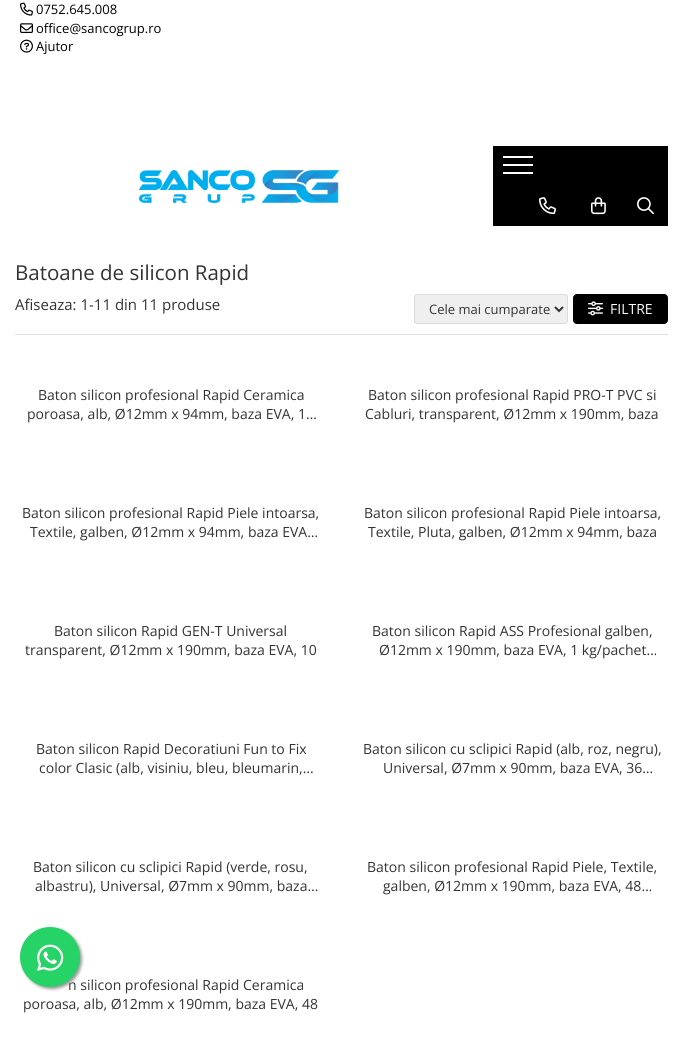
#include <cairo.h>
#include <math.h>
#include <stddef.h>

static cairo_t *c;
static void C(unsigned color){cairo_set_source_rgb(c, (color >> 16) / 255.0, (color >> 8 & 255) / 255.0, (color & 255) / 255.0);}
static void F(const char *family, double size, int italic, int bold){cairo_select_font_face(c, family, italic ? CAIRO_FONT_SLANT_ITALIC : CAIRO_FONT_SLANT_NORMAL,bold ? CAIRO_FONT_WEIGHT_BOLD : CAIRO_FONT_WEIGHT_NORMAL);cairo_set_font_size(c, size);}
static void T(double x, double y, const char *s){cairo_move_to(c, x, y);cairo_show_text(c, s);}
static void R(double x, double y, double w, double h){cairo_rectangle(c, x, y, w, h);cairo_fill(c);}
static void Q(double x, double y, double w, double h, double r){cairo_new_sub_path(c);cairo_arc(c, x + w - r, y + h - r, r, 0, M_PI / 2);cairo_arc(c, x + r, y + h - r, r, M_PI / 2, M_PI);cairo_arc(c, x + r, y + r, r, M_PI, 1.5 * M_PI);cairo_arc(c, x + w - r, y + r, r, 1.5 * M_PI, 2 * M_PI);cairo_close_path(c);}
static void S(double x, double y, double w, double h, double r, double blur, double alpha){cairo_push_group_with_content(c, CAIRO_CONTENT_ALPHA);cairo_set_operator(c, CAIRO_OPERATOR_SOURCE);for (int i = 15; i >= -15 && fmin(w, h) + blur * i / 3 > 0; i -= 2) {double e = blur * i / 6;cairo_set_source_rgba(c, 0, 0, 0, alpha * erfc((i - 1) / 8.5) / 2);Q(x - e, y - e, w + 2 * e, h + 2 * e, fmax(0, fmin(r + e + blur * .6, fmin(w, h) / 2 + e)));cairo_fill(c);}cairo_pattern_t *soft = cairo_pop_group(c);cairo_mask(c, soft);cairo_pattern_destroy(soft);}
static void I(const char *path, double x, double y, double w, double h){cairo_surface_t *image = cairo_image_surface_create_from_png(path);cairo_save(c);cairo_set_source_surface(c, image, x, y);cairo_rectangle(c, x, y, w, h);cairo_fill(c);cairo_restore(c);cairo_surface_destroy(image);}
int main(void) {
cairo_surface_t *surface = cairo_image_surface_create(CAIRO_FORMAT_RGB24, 683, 1037);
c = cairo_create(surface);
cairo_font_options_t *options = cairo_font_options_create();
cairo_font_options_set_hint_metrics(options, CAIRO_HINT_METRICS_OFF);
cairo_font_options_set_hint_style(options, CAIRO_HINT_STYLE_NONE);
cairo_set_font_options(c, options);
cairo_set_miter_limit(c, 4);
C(0xffffff);
cairo_paint(c);
I("1.png",20,2,13,14);
F("Open Sans",13,0,0);
C(0x000000);
T(36,14,"0752.645.008");
I("2.png",20,23,13,10);
T(36,33,"office@sancogrup.ro");
I("3.png",20,39,13,14);
T(36,51,"Ajutor");
I("4.png",139,170,200,33);
R(493,146,175,80);
C(0xffffff);
R(503,164,30,2);
R(503,156,30,2);
R(503,172,30,2);
I("5.png",539,197,17,18);
I("6.png",591,197,15,18);
I("7.png",637,197,17,18);
F("Open Sans",20.5,0,0);
C(0x333333);
T(15,280,"Batoane de silicon Rapid");
C(0xdfdfdf);
R(15,334,653,1);
F("Open Sans",15,0,0);
C(0x333333);
T(15,310,"Afiseaza: 1-11 din 11 produse");
C(0xefefef);
Q(414.5,294.5,153,29,2.5);
cairo_fill_preserve(c);
C(0xdbdbdb);
cairo_set_line_width(c,1);
cairo_stroke(c);
cairo_new_path(c);
cairo_move_to(c,555,307);
cairo_line_to(c,559,311);
cairo_line_to(c,563,307);
C(0x333333);
cairo_set_line_width(c,2);
cairo_stroke(c);
F("Open Sans",13,0,0);
T(429,314,"Cele mai cumparate");
C(0x000000);
Q(573,294,95,30,4);
cairo_fill(c);
I("8.png",588,301,15,15);
F("Open Sans",14,0,0);
C(0xffffff);
T(610,314,"FILTRE");
C(0x333333);
T(38,400,"Baton silicon profesional Rapid Ceramica");
T(27,419,"poroasa, alb, Ø12mm x 94mm, baza EVA, 1…");
T(368,400,"Baton silicon profesional Rapid PRO-T PVC si");
T(365,419,"Cabluri, transparent, Ø12mm x 190mm, baza");
T(22,518,"Baton silicon profesional Rapid Piele intoarsa,");
T(30,537,"Textile, galben, Ø12mm x 94mm, baza EVA…");
T(364,518,"Baton silicon profesional Rapid Piele intoarsa,");
T(368,537,"Textile, Pluta, galben, Ø12mm x 94mm, baza");
T(54,636,"Baton silicon Rapid GEN-T Universal");
T(25,655,"transparent, Ø12mm x 190mm, baza EVA, 10");
T(372,636,"Baton silicon Rapid ASS Profesional galben,");
T(379,655,"Ø12mm x 190mm, baza EVA, 1 kg/pachet…");
T(36,754,"Baton silicon Rapid Decoratiuni Fun to Fix");
T(39,773,"color Clasic (alb, visiniu, bleu, bleumarin,…");
T(363,754,"Baton silicon cu sclipici Rapid (alb, roz, negru),");
T(383,773,"Universal, Ø7mm x 90mm, baza EVA, 36…");
T(33,872,"Baton silicon cu sclipici Rapid (verde, rosu,");
T(35,891,"albastru), Universal, Ø7mm x 90mm, baza…");
T(367,872,"Baton silicon profesional Rapid Piele, Textile,");
T(383,891,"galben, Ø12mm x 190mm, baza EVA, 48…");
T(68,990,"n silicon profesional Rapid Ceramica");
T(23,1009,"poroasa, alb, Ø12mm x 190mm, baza EVA, 48");
C(0x999999);
S(22,929,60,60,30,1.5,1);
C(0x25d366);
cairo_arc(c,50,957,30,0,2 * M_PI);
cairo_fill(c);
I("9.png",37,944,27,27);
cairo_surface_write_to_png(surface, "o.png");
cairo_font_options_destroy(options);
cairo_destroy(c);
cairo_surface_destroy(surface);
return 0;
}
